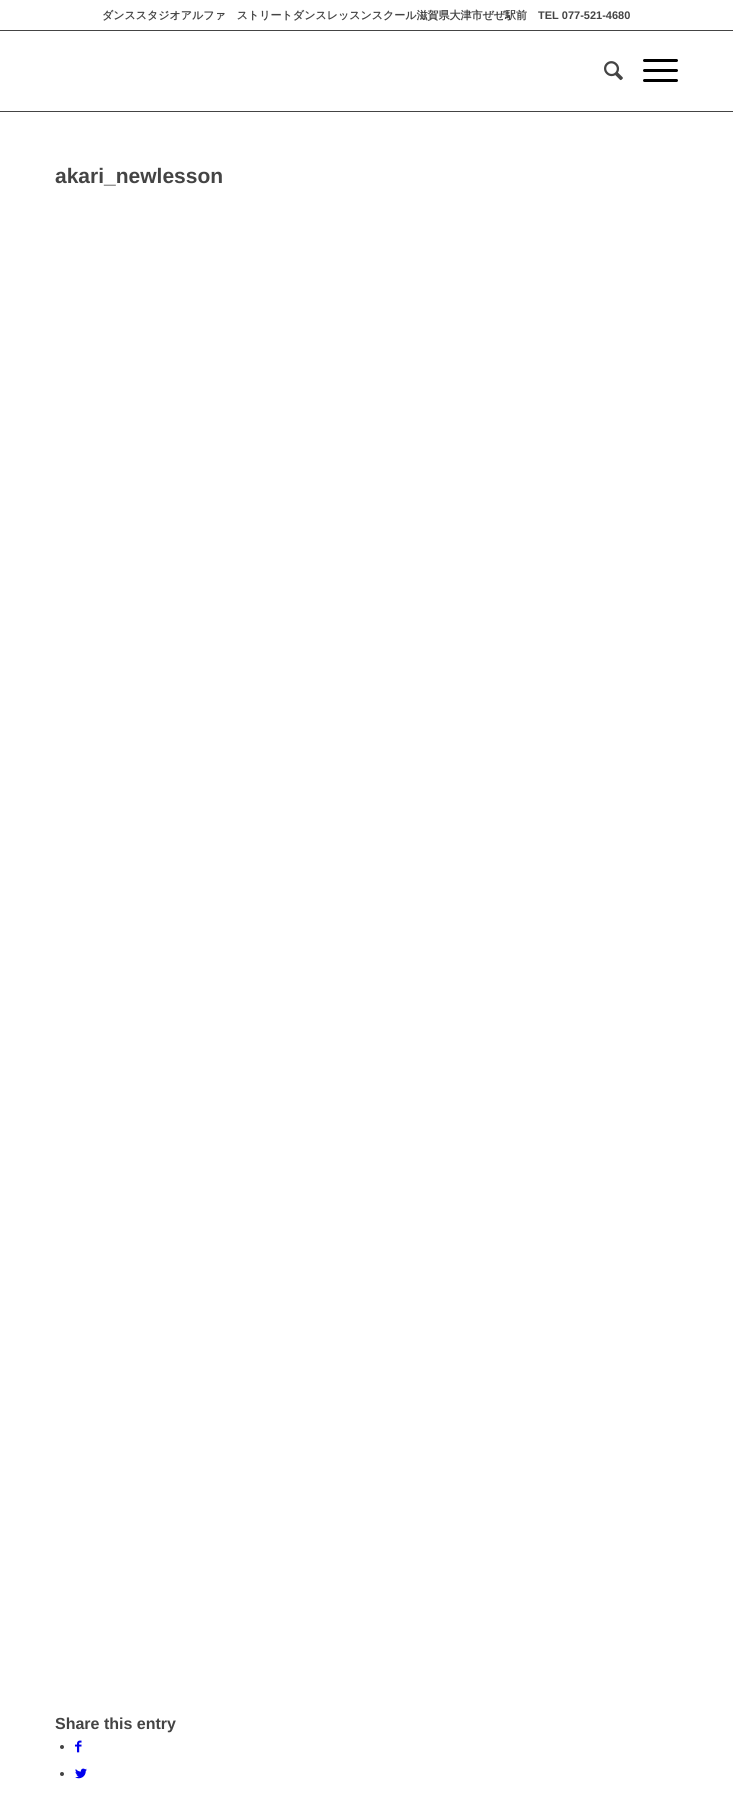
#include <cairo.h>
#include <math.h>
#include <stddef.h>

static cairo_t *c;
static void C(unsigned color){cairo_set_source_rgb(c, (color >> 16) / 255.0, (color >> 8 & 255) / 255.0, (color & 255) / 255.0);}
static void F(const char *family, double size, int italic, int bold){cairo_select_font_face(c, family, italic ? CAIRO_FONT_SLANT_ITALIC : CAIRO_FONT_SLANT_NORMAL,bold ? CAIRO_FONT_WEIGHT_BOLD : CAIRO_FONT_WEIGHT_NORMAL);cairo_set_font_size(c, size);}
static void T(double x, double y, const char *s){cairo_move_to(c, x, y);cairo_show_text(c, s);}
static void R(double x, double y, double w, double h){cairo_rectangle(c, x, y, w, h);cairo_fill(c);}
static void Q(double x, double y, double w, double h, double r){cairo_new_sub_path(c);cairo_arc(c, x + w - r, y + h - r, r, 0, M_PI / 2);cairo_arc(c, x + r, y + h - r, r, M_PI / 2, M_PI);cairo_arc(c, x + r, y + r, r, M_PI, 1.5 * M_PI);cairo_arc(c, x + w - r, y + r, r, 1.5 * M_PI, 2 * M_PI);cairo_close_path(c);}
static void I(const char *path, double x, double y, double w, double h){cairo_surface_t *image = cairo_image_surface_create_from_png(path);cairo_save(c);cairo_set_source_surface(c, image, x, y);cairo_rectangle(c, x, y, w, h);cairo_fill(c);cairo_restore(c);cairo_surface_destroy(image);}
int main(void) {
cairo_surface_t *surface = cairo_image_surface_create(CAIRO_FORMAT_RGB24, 733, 1798);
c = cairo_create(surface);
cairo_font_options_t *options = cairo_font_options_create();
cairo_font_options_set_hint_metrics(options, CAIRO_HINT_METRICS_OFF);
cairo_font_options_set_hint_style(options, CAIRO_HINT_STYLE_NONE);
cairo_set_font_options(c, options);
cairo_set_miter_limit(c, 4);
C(0xffffff);
cairo_paint(c);
F("WenQuanYi Zen Hei",11,0,1);
C(0x444444);
T(102,19,"ダンススタジオアルファ　ストリートダンスレッスンスクール滋賀県大津市ぜぜ駅前");
F("Liberation Sans",11,0,1);
T(538,19,"TEL 077-521-4680");
R(0,30,733,1);
R(0,111,733,1);
I("1.png",604,61,19,20);
C(0x000000);
Q(643,69,35,3,1.5);
cairo_fill(c);
Q(643,59,35,3,1.5);
cairo_fill(c);
Q(643,79,35,3,1.5);
cairo_fill(c);
F("Liberation Sans",21,0,1);
C(0x444444);
T(55,183,"akari_newlesson");
F("Liberation Sans",16,0,1);
T(55,1729,"Share this entry");
cairo_new_path(c);
cairo_arc(c,62,1747,2,0,2 * M_PI);
cairo_fill(c);
I("2.png",75,1740,7,13);
cairo_arc(c,62,1774,2,0,2 * M_PI);
cairo_fill(c);
I("3.png",75,1768,12,11);
cairo_surface_write_to_png(surface, "o.png");
cairo_font_options_destroy(options);
cairo_destroy(c);
cairo_surface_destroy(surface);
return 0;
}
